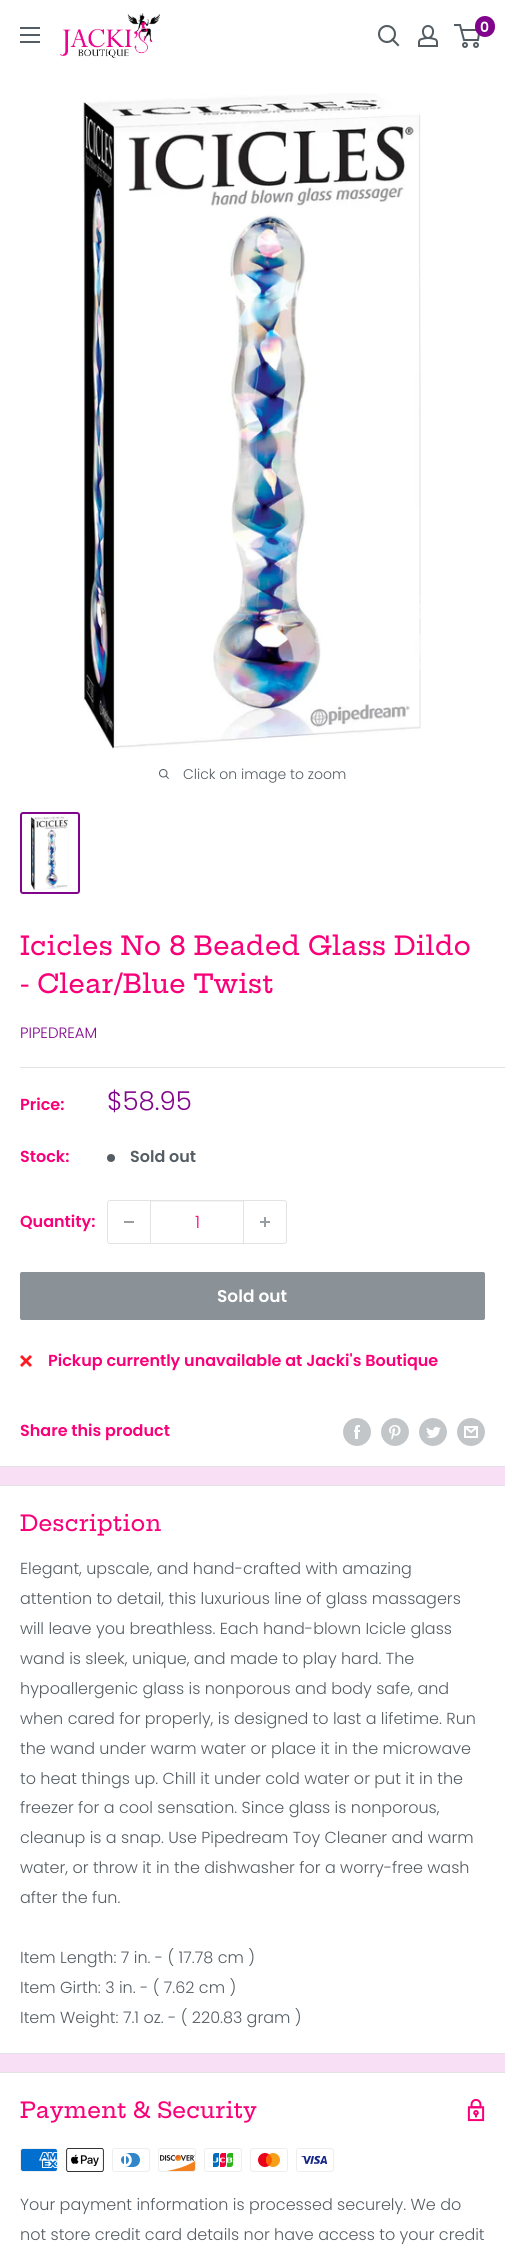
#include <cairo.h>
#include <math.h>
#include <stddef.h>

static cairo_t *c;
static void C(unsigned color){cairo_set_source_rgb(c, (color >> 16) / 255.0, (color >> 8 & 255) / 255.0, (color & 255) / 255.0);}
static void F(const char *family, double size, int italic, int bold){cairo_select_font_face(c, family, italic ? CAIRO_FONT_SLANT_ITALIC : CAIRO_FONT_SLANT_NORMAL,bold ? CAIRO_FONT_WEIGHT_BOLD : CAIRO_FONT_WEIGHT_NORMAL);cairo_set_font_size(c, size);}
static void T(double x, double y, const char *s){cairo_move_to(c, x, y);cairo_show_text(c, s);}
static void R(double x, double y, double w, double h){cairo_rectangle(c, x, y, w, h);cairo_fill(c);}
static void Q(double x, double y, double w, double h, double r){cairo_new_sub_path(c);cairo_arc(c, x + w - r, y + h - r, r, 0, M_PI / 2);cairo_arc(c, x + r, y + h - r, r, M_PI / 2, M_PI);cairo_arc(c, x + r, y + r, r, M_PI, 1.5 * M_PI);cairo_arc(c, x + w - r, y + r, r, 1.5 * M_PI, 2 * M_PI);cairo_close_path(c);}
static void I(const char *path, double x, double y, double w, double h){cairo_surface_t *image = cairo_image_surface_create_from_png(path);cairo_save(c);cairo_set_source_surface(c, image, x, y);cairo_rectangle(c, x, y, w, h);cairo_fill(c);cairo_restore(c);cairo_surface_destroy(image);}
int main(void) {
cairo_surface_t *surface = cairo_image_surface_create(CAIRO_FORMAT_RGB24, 505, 2258);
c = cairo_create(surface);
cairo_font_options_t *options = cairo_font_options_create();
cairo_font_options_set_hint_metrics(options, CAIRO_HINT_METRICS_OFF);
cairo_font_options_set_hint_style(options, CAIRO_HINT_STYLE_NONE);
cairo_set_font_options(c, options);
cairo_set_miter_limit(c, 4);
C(0xf9dff5);
cairo_paint(c);
C(0xffffff);
R(0,0,505,1466);
I("1.png",20,27,20,16);
I("2.png",60,13,100,45);
cairo_new_path(c);
cairo_move_to(c,398,45);
cairo_line_to(c,392.5,39.5);
C(0x545d63);
cairo_set_line_width(c,2.1);
cairo_set_line_cap(c,CAIRO_LINE_CAP_SQUARE);
cairo_stroke(c);
cairo_arc(c,387,34,8,0,2 * M_PI);
cairo_set_line_cap(c,CAIRO_LINE_CAP_BUTT);
cairo_stroke(c);
I("3.png",418,25,20,22);
cairo_arc(c,465,45,2,0,2 * M_PI);
cairo_set_line_width(c,2);
cairo_stroke(c);
cairo_arc(c,476,45,2,0,2 * M_PI);
cairo_stroke(c);
cairo_new_path(c);
cairo_move_to(c,461.5,30);
cairo_line_to(c,479.5,30);
cairo_line_to(c,478,40);
cairo_line_to(c,464,40);
cairo_line_to(c,460,25);
cairo_line_to(c,454,25);
cairo_stroke(c);
C(0x83048c);
Q(475,16,20,21,10);
cairo_fill(c);
F("Poppins SemiBold",14,0,0);
C(0xffffff);
T(480,32,"0");
I("4.png",83,93,338,656);
I("5.png",159,769,10,10);
F("Poppins Light",14,0,0);
C(0x545d63);
T(183,779,"Click on image to zoom");
Q(21,813,58,80,2);
C(0x83048c);
cairo_stroke(c);
I("6.png",30,816,39,74);
C(0xe1e3e4);
R(0,1466,505,1);
F("Hepta Slab Medium",26,0,0);
C(0xf90079);
T(20,955,"Icicles No 8 Beaded Glass Dildo");
T(20,993,"- Clear/Blue Twist");
F("Poppins Light",15,0,0);
C(0x83048c);
T(20,1038,"PIPEDREAM");
C(0xe1e3e4);
R(20,1067,485,1);
F("Poppins SemiBold",16,0,0);
C(0xf90079);
T(20,1110,"Price:");
F("Poppins Light",26,0,0);
C(0x83048c);
T(107,1110,"$58.95");
F("Poppins SemiBold",16,0,0);
C(0xf90079);
T(20,1162,"Stock:");
C(0x545d63);
cairo_new_path(c);
cairo_arc(c,111,1158,4,0,2 * M_PI);
cairo_fill(c);
T(130,1162,"Sold out");
C(0xf90079);
T(20,1227,"Quantity:");
Q(107.5,1200.5,179,43,2.5);
C(0xe1e3e4);
cairo_set_line_width(c,1);
cairo_stroke(c);
C(0x989ea1);
R(124,1221,10,2);
C(0xf3f4f4);
R(151,1201,92,1);
C(0xe1e3e4);
R(243,1201,1,42);
R(150,1201,1,42);
F("Poppins Light",17,0,0);
C(0xf90079);
T(195,1228,"1");
I("7.png",260,1217,10,10);
C(0x8a9297);
Q(20.5,1272.5,464,47,1.5);
cairo_fill_preserve(c);
cairo_stroke(c);
F("Poppins SemiBold",17,0,0);
C(0xffffff);
T(217,1302,"Sold out");
I("8.png",20,1355,12,12);
F("Poppins SemiBold",16,0,0);
C(0xf90079);
T(48,1366,"Pickup currently unavailable at Jacki's Boutique");
T(20,1436,"Share this product");
I("9.png",343,1418,28,28);
I("10.png",381,1418,28,28);
I("11.png",419,1418,28,28);
I("12.png",457,1418,28,28);
C(0xffffff);
R(0,1486,505,567);
C(0xe1e3e4);
R(0,1485,505,1);
R(0,2053,505,1);
F("Hepta Slab Medium",22,0,0);
C(0xf90079);
T(20,1531,"Description");
F("Poppins Light",16,0,0);
C(0x545d63);
T(20,1574,"Elegant, upscale, and hand-crafted with amazing");
T(20,1604,"attention to detail, this luxurious line of glass massagers");
T(20,1634,"will leave you breathless. Each hand-blown Icicle glass");
T(20,1664,"wand is sleek, unique, and made to play hard. The");
T(20,1694,"hypoallergenic glass is nonporous and body safe, and");
T(20,1724,"when cared for properly, is designed to last a lifetime. Run");
T(20,1754,"the wand under warm water or place it in the microwave");
T(20,1784,"to heat things up. Chill it under cold water or put it in the");
T(20,1813,"freezer for a cool sensation. Since glass is nonporous,");
T(20,1843,"cleanup is a snap. Use Pipedream Toy Cleaner and warm");
T(20,1873,"water, or throw it in the dishwasher for a worry-free wash");
T(20,1903,"after the fun.");
T(20,1963,"Item Length: 7 in. - ( 17.78 cm )");
T(20,1993,"Item Girth: 3 in. - ( 7.62 cm )");
T(20,2023,"Item Weight: 7.1 oz. - ( 220.83 gram )");
C(0xffffff);
R(0,2073,505,185);
C(0xe1e3e4);
R(0,2072,505,1);
F("Hepta Slab Medium",22,0,0);
C(0xf90079);
T(20,2118,"Payment & Security");
I("13.png",467,2098,18,24);
I("14.png",20,2148,38,24);
I("15.png",66,2148,38,24);
I("16.png",112,2148,38,24);
I("17.png",158,2148,38,24);
I("18.png",204,2148,38,24);
I("19.png",250,2148,38,24);
I("20.png",296,2148,38,24);
F("Poppins Light",16,0,0);
C(0x545d63);
T(20,2210,"Your payment information is processed securely. We do");
T(20,2240,"not store credit card details nor have access to your credit");
cairo_surface_write_to_png(surface, "o.png");
cairo_font_options_destroy(options);
cairo_destroy(c);
cairo_surface_destroy(surface);
return 0;
}
